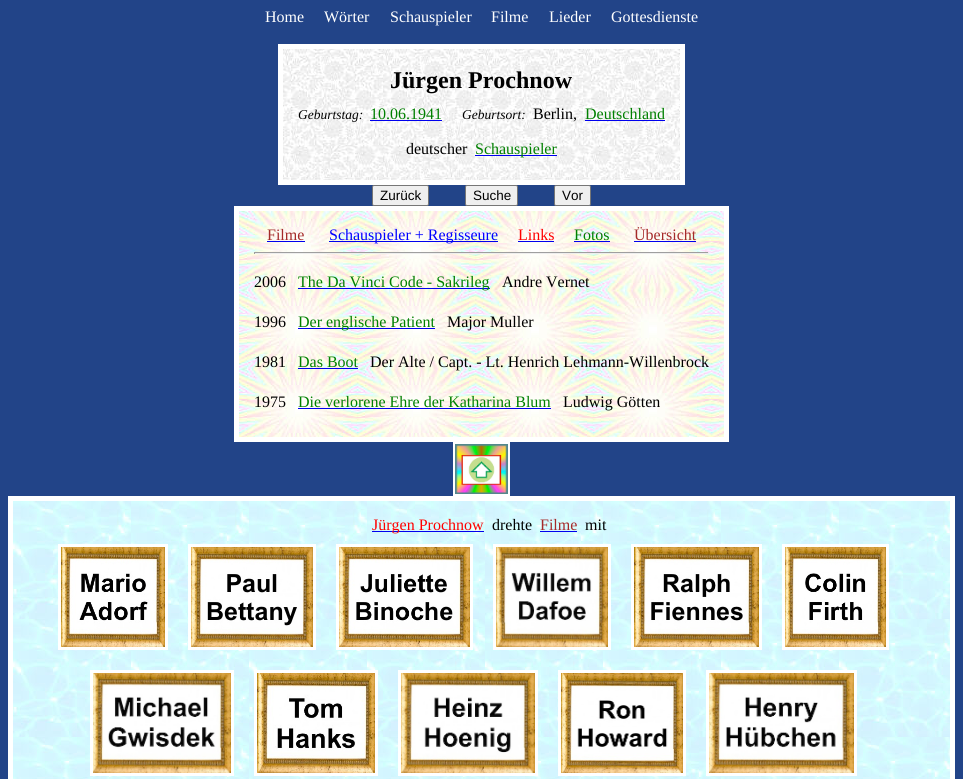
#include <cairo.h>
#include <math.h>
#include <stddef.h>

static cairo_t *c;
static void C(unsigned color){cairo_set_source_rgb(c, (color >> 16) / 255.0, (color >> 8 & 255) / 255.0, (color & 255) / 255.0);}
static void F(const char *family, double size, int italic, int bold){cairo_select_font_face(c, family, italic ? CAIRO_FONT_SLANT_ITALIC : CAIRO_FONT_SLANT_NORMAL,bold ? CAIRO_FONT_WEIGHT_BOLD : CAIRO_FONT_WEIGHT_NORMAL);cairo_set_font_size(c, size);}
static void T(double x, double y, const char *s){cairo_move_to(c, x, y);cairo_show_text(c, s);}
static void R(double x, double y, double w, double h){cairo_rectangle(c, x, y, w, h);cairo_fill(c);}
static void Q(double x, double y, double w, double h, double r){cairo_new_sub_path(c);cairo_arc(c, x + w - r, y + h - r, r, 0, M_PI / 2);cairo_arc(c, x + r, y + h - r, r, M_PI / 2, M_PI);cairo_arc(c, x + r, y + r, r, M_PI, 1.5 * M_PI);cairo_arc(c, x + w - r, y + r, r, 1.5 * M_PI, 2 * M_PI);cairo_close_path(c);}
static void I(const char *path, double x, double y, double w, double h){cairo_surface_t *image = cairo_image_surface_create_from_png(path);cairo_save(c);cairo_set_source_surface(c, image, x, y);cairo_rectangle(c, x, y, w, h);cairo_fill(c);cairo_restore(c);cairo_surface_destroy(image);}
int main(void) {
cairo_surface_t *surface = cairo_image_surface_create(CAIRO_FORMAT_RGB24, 963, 779);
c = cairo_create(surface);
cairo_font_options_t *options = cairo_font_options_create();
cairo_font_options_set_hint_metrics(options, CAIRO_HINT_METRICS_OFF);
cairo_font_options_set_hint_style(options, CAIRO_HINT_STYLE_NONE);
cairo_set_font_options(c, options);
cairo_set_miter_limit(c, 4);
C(0x224488);
cairo_paint(c);
F("Liberation Serif",16,0,0);
C(0xffffff);
T(265,22,"Home");
T(324,22,"Wörter");
T(390,22,"Schauspieler");
T(491,22,"Filme");
T(549,22,"Lieder");
T(611,22,"Gottesdienste");
R(278,44,407,141);
I("1.png",283,49,397,131);
F("Liberation Serif",24,0,1);
C(0x000000);
T(390,88,"Jürgen Prochnow");
F("Liberation Serif",13.5,1,0);
T(298,119,"Geburtstag:");
F("Liberation Serif",16,0,0);
C(0x008000);
T(370,119,"10.06.1941");
C(0x0000ee);
R(370,120,72,1);
F("Liberation Serif",13.5,1,0);
C(0x000000);
T(462,119,"Geburtsort:");
F("Liberation Serif",16,0,0);
T(533,119,"Berlin,");
C(0x008000);
T(585,119,"Deutschland");
C(0x0000ee);
R(585,120,80,1);
C(0x000000);
T(406,154,"deutscher");
C(0x0000ee);
R(475,155,82,1);
C(0x008000);
T(475,154,"Schauspieler");
C(0xefefef);
Q(372.5,185.5,56,20,1.5);
cairo_fill_preserve(c);
C(0x767676);
cairo_set_line_width(c,1);
cairo_stroke(c);
F("Liberation Sans",13.5,0,0);
C(0x000000);
T(380,200,"Zurück");
C(0xefefef);
Q(465.5,185.5,52,20,1.5);
cairo_fill_preserve(c);
C(0x767676);
cairo_stroke(c);
C(0x000000);
T(473,200,"Suche");
C(0xefefef);
Q(554.5,185.5,36,20,1.5);
cairo_fill_preserve(c);
C(0x767676);
cairo_stroke(c);
C(0x000000);
T(562,200,"Vor");
C(0xffffff);
R(234,206,495,236);
I("2.png",239,211,485,226);
F("Liberation Serif",16,0,0);
C(0xa52a2a);
T(267,240,"Filme");
C(0x0000ee);
R(267,241,38,1);
R(329,241,169,1);
C(0x0000ff);
T(329,240,"Schauspieler + Regisseure");
C(0xff0000);
T(518,240,"Links");
C(0x0000ee);
R(518,241,36,1);
C(0x008000);
T(574,240,"Fotos");
C(0x0000ee);
R(574,241,36,1);
C(0xa52a2a);
T(634,240,"Übersicht");
C(0x0000ee);
R(634,241,62,1);
C(0x9f9f9f);
R(254,252,455,1);
C(0xeeeeee);
R(708,252,1,2);
R(254,253,455,1);
C(0x9f9f9f);
R(254,252,1,2);
C(0x000000);
T(254,287,"2006");
C(0x0000ee);
R(298,288,192,1);
C(0x008000);
T(298,287,"The Da Vinci Code - Sakrileg");
C(0x000000);
T(502,287,"Andre Vernet");
T(254,327,"1996");
C(0x0000ee);
R(298,328,137,1);
C(0x008000);
T(298,327,"Der englische Patient");
C(0x000000);
T(447,327,"Major Muller");
T(254,367,"1981");
C(0x008000);
T(298,367,"Das Boot");
C(0x0000ee);
R(298,368,60,1);
C(0x000000);
T(370,367,"Der Alte / Capt. - Lt. Henrich Lehmann-Willenbrock");
T(254,407,"1975");
C(0x008000);
T(298,407,"Die verlorene Ehre der Katharina Blum");
C(0x0000ee);
R(298,408,253,1);
C(0x000000);
T(563,407,"Ludwig Götten");
cairo_rectangle(c,454,443,55,52);
C(0xffffff);
cairo_set_line_width(c,2);
cairo_stroke(c);
I("3.png",455,444,53,50);
R(8,496,947,283);
I("4.png",13,501,937,278);
C(0x0000ee);
R(372,531,112,1);
C(0xff0000);
T(372,530,"Jürgen Prochnow");
C(0x000000);
T(492,530,"drehte");
C(0xa52a2a);
T(540,530,"Filme");
C(0x0000ee);
R(540,531,37,1);
C(0x000000);
T(585,530,"mit");
cairo_rectangle(c,59.5,545.5,107,103);
C(0xffffff);
cairo_set_line_width(c,3);
cairo_stroke(c);
cairo_rectangle(c,189.5,545.5,125,103);
cairo_stroke(c);
cairo_rectangle(c,337.5,545.5,134,103);
cairo_stroke(c);
cairo_rectangle(c,494.5,545.5,115,103);
cairo_stroke(c);
cairo_rectangle(c,632.5,545.5,128,103);
cairo_stroke(c);
cairo_rectangle(c,783.5,545.5,104,103);
cairo_stroke(c);
I("5.png",61,547,104,100);
I("6.png",191,547,122,100);
I("7.png",339,547,131,100);
I("8.png",496,547,112,100);
I("9.png",634,547,125,100);
I("10.png",785,547,101,100);
cairo_rectangle(c,91.5,671.5,141,103);
cairo_stroke(c);
cairo_rectangle(c,255.5,671.5,121,103);
cairo_stroke(c);
cairo_rectangle(c,399.5,671.5,137,103);
cairo_stroke(c);
cairo_rectangle(c,559.5,671.5,125,103);
cairo_stroke(c);
cairo_rectangle(c,707.5,671.5,148,103);
cairo_stroke(c);
I("11.png",93,673,138,100);
I("12.png",257,673,118,100);
I("13.png",401,673,134,100);
I("14.png",561,673,122,100);
I("15.png",709,673,145,100);
cairo_surface_write_to_png(surface, "o.png");
cairo_font_options_destroy(options);
cairo_destroy(c);
cairo_surface_destroy(surface);
return 0;
}
